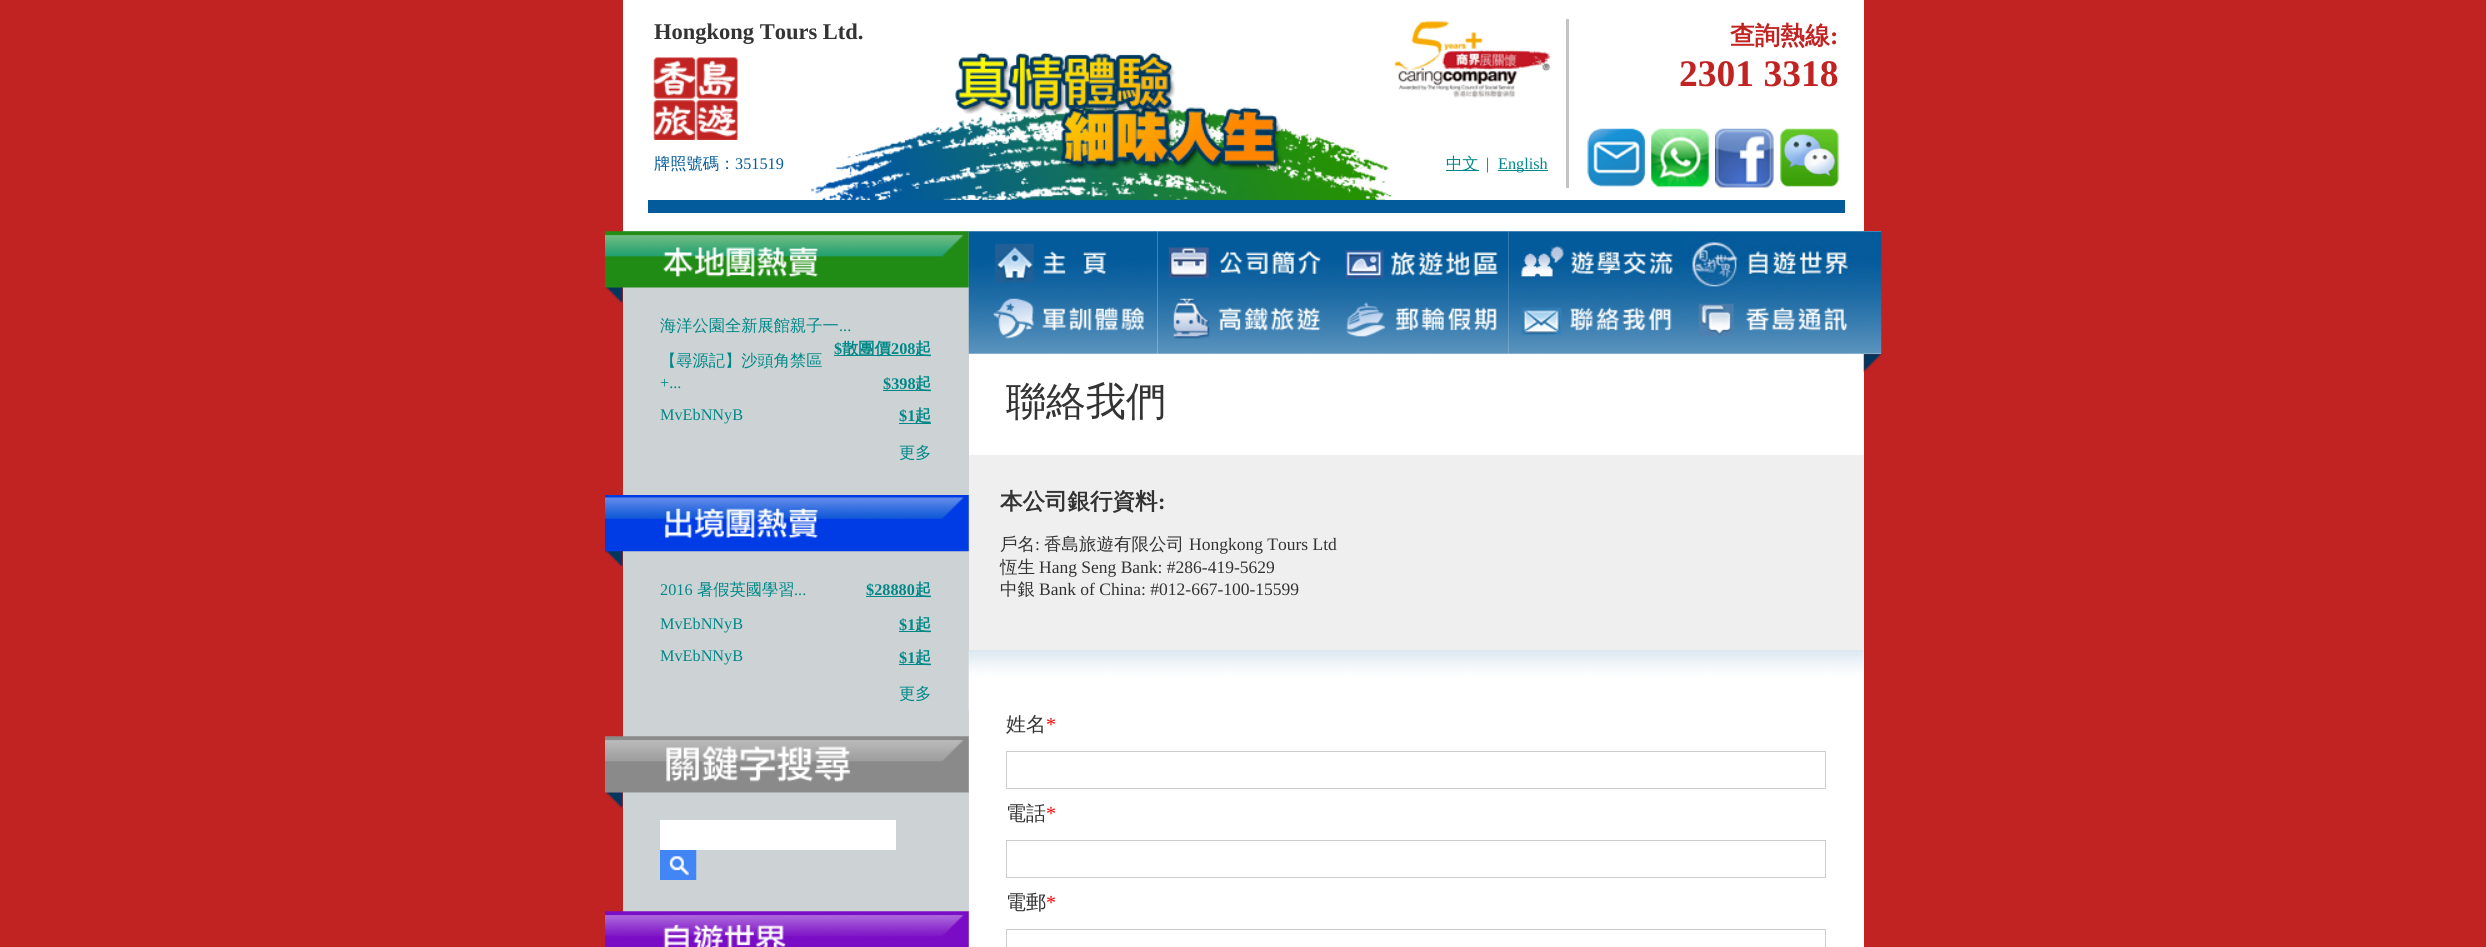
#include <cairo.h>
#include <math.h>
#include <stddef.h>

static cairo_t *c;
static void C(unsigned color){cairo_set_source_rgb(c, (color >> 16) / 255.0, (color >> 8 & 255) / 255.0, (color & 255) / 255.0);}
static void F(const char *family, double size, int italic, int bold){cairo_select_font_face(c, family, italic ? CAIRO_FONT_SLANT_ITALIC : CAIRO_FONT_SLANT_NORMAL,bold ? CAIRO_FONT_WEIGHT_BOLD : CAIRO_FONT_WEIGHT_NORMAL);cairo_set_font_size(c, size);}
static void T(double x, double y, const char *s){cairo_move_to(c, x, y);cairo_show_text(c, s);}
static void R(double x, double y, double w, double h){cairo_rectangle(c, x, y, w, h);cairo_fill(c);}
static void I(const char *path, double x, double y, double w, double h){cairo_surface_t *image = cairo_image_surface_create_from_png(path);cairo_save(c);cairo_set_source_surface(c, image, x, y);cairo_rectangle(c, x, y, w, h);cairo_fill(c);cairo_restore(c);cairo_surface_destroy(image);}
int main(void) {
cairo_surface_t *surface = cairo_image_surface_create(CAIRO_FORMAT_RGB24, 2486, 947);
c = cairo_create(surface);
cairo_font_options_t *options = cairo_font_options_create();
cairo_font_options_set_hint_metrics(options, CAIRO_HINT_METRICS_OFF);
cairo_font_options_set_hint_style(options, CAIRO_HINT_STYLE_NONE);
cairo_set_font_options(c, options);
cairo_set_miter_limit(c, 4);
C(0xc12322);
cairo_paint(c);
C(0xffffff);
R(623,0,1241,231);
I("1.png",811,21,740,179);
F("Liberation Serif",22.5,0,1);
C(0x333333);
T(654,39,"Hongkong Tours Ltd.");
I("2.png",653,57,85,83);
F("WenQuanYi Zen Hei Medium",16.25,0,0);
C(0x045b9b);
T(654,169,"牌照號碼：");
F("Liberation Serif",16.25,0,0);
T(735,169,"351519");
C(0x008888);
R(1446,170,33,1);
F("WenQuanYi Zen Hei Medium",16.25,0,0);
T(1446,169,"中文");
F("Liberation Serif",16.25,0,0);
C(0x045b9b);
T(1486,169,"|");
C(0x008888);
R(1498,170,50,1);
T(1498,169,"English");
C(0xc4c4c4);
R(1566,19,3,169);
F("WenQuanYi Zen Hei",25,0,1);
C(0xc12322);
T(1730,44,"查詢熱線");
F("Liberation Serif",25,0,1);
T(1830,44,":");
F("Liberation Serif",37.5,0,1);
T(1679,86,"2301 3318");
I("3.png",1587,128,58,59);
I("4.png",1651,128,58,60);
I("5.png",1715,128,59,60);
I("6.png",1780,128,59,59);
C(0x045b9b);
R(648,200,1197,13);
C(0xcdd3d4);
R(623,231,346,716);
I("7.png",605,287,18,16);
I("8.png",605,231,364,57);
F("WenQuanYi Zen Hei Medium",16.25,0,0);
C(0x008888);
T(660,331,"海洋公園全新展館親子一");
F("Liberation Serif",16.25,0,0);
T(839,331,"...");
R(834,355,97,1);
F("Liberation Serif",16.25,0,1);
T(834,354,"$");
F("WenQuanYi Zen Hei",16.25,0,1);
T(842,354,"散團價");
F("Liberation Serif",16.25,0,1);
T(891,354,"208");
F("WenQuanYi Zen Hei",16.25,0,1);
T(915,354,"起");
F("WenQuanYi Zen Hei Medium",16.25,0,0);
T(660,366,"【尋源記】沙頭角禁區");
F("Liberation Serif",16.25,0,0);
T(660,388,"+...");
R(883,390,48,1);
F("Liberation Serif",16.25,0,1);
T(883,389,"$398");
F("WenQuanYi Zen Hei",16.25,0,1);
T(915,389,"起");
F("Liberation Serif",16.25,0,0);
T(660,420,"MvEbNNyB");
F("Liberation Serif",16.25,0,1);
T(899,421,"$1");
R(899,423,32,1);
F("WenQuanYi Zen Hei",16.25,0,1);
T(915,421,"起");
F("WenQuanYi Zen Hei Medium",16.25,0,0);
T(899,458,"更多");
I("9.png",605,551,18,16);
I("10.png",605,495,364,57);
F("Liberation Serif",16.25,0,0);
T(660,595,"2016");
F("WenQuanYi Zen Hei Medium",16.25,0,0);
T(697,595,"暑假英國學習");
F("Liberation Serif",16.25,0,0);
T(794,595,"...");
R(866,596,65,1);
F("Liberation Serif",16.25,0,1);
T(866,595,"$28880");
F("WenQuanYi Zen Hei",16.25,0,1);
T(915,595,"起");
F("Liberation Serif",16.25,0,0);
T(660,629,"MvEbNNyB");
R(899,631,32,1);
F("Liberation Serif",16.25,0,1);
T(899,630,"$1");
F("WenQuanYi Zen Hei",16.25,0,1);
T(915,630,"起");
F("Liberation Serif",16.25,0,0);
T(660,661,"MvEbNNyB");
R(899,664,32,1);
F("Liberation Serif",16.25,0,1);
T(899,663,"$1");
F("WenQuanYi Zen Hei",16.25,0,1);
T(915,663,"起");
F("WenQuanYi Zen Hei Medium",16.25,0,0);
T(899,699,"更多");
I("11.png",605,792,18,16);
I("12.png",605,736,364,57);
C(0xffffff);
R(660,820,236,30);
I("13.png",660,850,37,30);
I("14.png",605,911,364,36);
R(969,354,895,593);
I("15.png",1863,353,19,20);
R(969,231,912,123);
I("16.png",968,231,190,59);
I("17.png",1157,231,178,59);
I("18.png",1335,231,174,59);
I("19.png",1508,231,177,59);
I("20.png",1685,231,197,59);
I("21.png",968,290,190,64);
I("22.png",1157,290,178,64);
I("23.png",1335,290,174,64);
I("24.png",1508,290,177,64);
I("25.png",1685,290,197,64);
F("WenQuanYi Zen Hei Medium",40,0,0);
C(0x333333);
T(1006,415,"聯絡我們");
C(0xefefef);
R(969,455,895,195);
F("WenQuanYi Zen Hei",22.5,0,1);
C(0x333333);
T(1000,509,"本公司銀行資料");
F("Liberation Serif",22.5,0,1);
T(1158,509,":");
F("WenQuanYi Zen Hei Medium",17.5,0,0);
T(1000,550,"戶名");
F("Liberation Serif",17.5,0,0);
T(1035,550,":");
F("WenQuanYi Zen Hei Medium",17.5,0,0);
T(1044,550,"香島旅遊有限公司");
F("Liberation Serif",17.5,0,0);
T(1189,550,"Hongkong Tours Ltd");
F("WenQuanYi Zen Hei Medium",17.5,0,0);
T(1000,573,"恆生");
F("Liberation Serif",17.5,0,0);
T(1039,573,"Hang Seng Bank: #286-419-5629");
F("WenQuanYi Zen Hei Medium",17.5,0,0);
T(1000,595,"中銀");
F("Liberation Serif",17.5,0,0);
T(1039,595,"Bank of China: #012-667-100-15599");
I("26.png",968,650,896,61);
F("WenQuanYi Zen Hei Medium",20,0,0);
T(1006,731,"姓名");
F("Liberation Serif",20,0,0);
C(0xff0000);
T(1046,731,"*");
cairo_rectangle(c,1006.5,751.5,819,37);
C(0xcccccc);
cairo_set_line_width(c,1);
cairo_stroke(c);
F("WenQuanYi Zen Hei Medium",20,0,0);
C(0x333333);
T(1006,820,"電話");
F("Liberation Serif",20,0,0);
C(0xff0000);
T(1046,820,"*");
cairo_rectangle(c,1006.5,840.5,819,37);
C(0xcccccc);
cairo_stroke(c);
F("WenQuanYi Zen Hei Medium",20,0,0);
C(0x333333);
T(1006,909,"電郵");
F("Liberation Serif",20,0,0);
C(0xff0000);
T(1046,909,"*");
cairo_rectangle(c,1006.5,929.5,819,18);
C(0xcccccc);
cairo_stroke(c);
cairo_surface_write_to_png(surface, "o.png");
cairo_font_options_destroy(options);
cairo_destroy(c);
cairo_surface_destroy(surface);
return 0;
}
